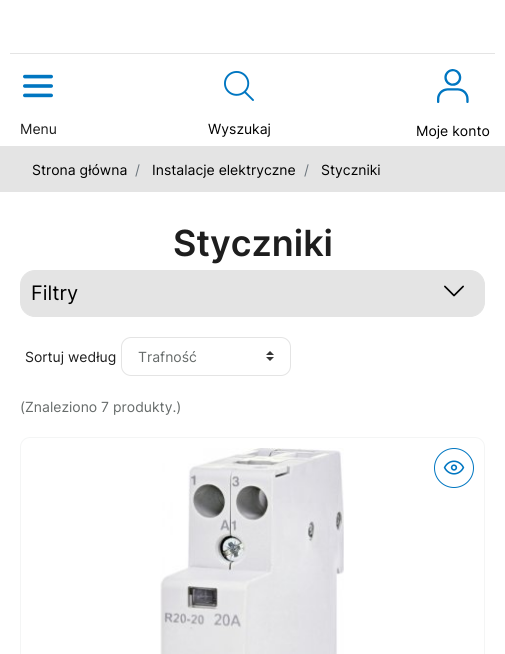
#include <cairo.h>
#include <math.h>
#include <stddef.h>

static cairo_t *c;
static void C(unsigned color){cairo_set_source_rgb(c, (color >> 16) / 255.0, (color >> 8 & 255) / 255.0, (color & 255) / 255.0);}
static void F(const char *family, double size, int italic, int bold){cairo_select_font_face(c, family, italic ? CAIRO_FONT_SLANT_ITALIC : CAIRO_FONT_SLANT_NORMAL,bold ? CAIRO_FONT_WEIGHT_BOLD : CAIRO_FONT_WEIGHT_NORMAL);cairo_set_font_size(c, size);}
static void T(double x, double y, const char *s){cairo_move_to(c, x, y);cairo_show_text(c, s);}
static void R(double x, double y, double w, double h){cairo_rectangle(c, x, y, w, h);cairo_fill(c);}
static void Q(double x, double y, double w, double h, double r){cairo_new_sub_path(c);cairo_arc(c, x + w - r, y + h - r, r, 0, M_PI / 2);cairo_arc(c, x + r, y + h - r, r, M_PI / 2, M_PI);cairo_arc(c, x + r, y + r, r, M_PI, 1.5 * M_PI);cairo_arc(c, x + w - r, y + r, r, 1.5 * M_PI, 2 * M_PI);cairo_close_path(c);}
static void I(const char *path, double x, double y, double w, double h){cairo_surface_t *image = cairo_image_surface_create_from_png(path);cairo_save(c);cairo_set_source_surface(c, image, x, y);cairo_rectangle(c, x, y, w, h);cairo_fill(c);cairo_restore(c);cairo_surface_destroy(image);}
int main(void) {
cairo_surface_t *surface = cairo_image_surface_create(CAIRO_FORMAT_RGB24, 505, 654);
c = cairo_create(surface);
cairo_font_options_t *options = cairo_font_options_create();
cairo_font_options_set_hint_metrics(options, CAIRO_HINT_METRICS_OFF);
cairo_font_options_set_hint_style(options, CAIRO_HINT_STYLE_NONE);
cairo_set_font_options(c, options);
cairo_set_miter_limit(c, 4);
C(0xffffff);
cairo_paint(c);
C(0xe4e4e4);
R(10,53,485,1);
I("1.png",23,74,30,24);
F("Inter",14,0,0);
C(0x1e1e1e);
T(20,134,"Menu");
I("2.png",224,71,30,30);
C(0x000000);
T(208,134,"Wyszukaj");
I("3.png",437,69,32,34);
T(416,136,"Moje konto");
C(0xe4e4e4);
R(0,146,505,46);
C(0x000000);
T(32,175,"Strona główna");
C(0x6c757d);
T(135,175,"/");
C(0x000000);
T(152,175,"Instalacje elektryczne");
C(0x6c757d);
T(304,175,"/");
C(0x000000);
T(321,175,"Styczniki");
F("Inter SemiBold",36,0,0);
C(0x1e1e1e);
T(173,256,"Styczniki");
C(0xe4e4e4);
Q(20.5,270.5,464,46,14.5);
cairo_fill_preserve(c);
cairo_set_line_width(c,1);
cairo_stroke(c);
F("Inter",20,0,0);
C(0x000000);
T(31,300,"Filtry");
I("4.png",444,285,20,12);
F("Inter",14,0,0);
C(0x1e1e1e);
T(25,362,"Sortuj według");
I("5.png",266,351,8,10);
Q(121.5,337.5,169,38,9.5);
C(0xe4e4e4);
cairo_stroke(c);
C(0x666b6a);
T(138,362,"Trafność");
T(20,412,"(Znaleziono 7 produkty.)");
Q(20.5,437.5,464,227,9.5);
C(0xf4f5f5);
cairo_stroke(c);
I("6.png",160,448,184,206);
cairo_arc(c,454,468,19.5,0,2 * M_PI);
C(0x0076c1);
cairo_stroke(c);
I("7.png",443,460,22,15);
cairo_surface_write_to_png(surface, "o.png");
cairo_font_options_destroy(options);
cairo_destroy(c);
cairo_surface_destroy(surface);
return 0;
}
